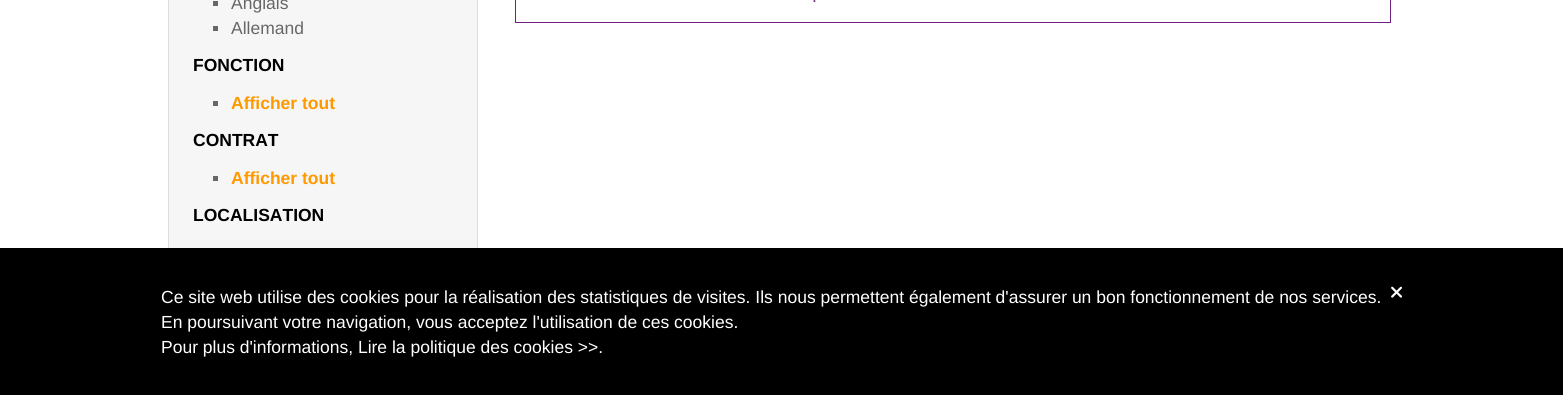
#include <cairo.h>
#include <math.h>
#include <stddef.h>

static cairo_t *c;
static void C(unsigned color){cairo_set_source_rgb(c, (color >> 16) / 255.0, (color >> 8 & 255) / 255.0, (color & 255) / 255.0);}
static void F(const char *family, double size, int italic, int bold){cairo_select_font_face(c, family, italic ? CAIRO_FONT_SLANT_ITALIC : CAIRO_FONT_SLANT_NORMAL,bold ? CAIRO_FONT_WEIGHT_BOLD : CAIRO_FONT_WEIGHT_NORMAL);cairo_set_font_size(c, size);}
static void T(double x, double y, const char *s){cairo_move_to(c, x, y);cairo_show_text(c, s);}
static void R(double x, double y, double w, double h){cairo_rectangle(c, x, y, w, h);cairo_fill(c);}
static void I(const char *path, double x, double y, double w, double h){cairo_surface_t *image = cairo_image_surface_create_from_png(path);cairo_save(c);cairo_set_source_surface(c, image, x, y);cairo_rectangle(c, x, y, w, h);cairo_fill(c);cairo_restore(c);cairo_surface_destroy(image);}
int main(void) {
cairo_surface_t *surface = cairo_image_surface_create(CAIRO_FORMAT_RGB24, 1563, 395);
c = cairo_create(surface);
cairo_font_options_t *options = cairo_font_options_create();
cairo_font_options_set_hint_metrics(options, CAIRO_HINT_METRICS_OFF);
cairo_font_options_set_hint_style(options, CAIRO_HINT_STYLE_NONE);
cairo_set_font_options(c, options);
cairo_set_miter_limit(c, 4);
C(0xffffff);
cairo_paint(c);
C(0xf6f6f6);
R(169,0,308,248);
cairo_rectangle(c,168.5,-.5,309,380);
C(0xdddddd);
cairo_set_line_width(c,1);
cairo_stroke(c);
C(0x676767);
R(213,1,5,5);
F("Liberation Sans",17.5,0,0);
T(231,9,"Anglais");
R(213,26,5,5);
T(231,34,"Allemand");
F("Liberation Sans",17.5,0,1);
C(0x000000);
T(193,71,"FONCTION");
C(0x676767);
R(213,101,5,5);
C(0xff9900);
T(231,109,"Afficher tout");
C(0x000000);
T(193,146,"CONTRAT");
C(0x676767);
R(213,176,5,5);
C(0xff9900);
T(231,184,"Afficher tout");
C(0x000000);
T(193,221,"LOCALISATION");
cairo_rectangle(c,515.5,-.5,875,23);
C(0x6f2282);
cairo_stroke(c);
F("Liberation Sans",17.5,0,0);
T(812,2,".");
C(0x000000);
R(0,248,1563,147);
C(0xffffff);
T(161,303,"Ce site web utilise des cookies pour la réalisation des statistiques de visites. Ils nous permettent également d'assurer un bon fonctionnement de nos services.");
I("1.png",1391,286,11,12);
T(161,328,"En poursuivant votre navigation, vous acceptez l'utilisation de ces cookies.");
T(161,353,"Pour plus d'informations, Lire la politique des cookies >>.");
cairo_surface_write_to_png(surface, "o.png");
cairo_font_options_destroy(options);
cairo_destroy(c);
cairo_surface_destroy(surface);
return 0;
}
